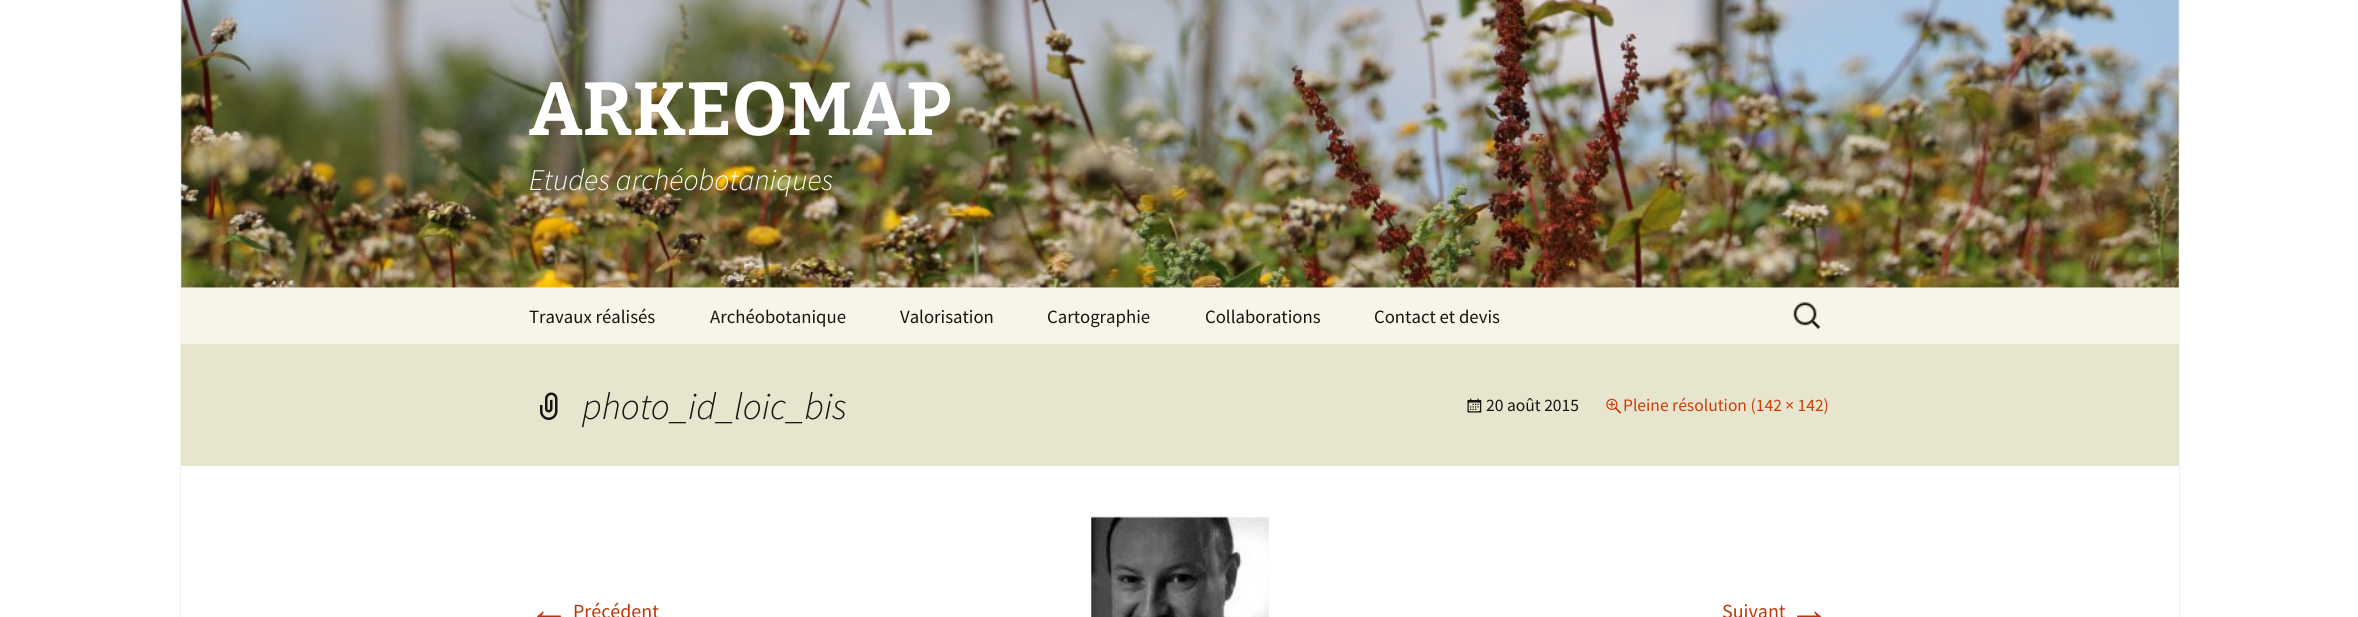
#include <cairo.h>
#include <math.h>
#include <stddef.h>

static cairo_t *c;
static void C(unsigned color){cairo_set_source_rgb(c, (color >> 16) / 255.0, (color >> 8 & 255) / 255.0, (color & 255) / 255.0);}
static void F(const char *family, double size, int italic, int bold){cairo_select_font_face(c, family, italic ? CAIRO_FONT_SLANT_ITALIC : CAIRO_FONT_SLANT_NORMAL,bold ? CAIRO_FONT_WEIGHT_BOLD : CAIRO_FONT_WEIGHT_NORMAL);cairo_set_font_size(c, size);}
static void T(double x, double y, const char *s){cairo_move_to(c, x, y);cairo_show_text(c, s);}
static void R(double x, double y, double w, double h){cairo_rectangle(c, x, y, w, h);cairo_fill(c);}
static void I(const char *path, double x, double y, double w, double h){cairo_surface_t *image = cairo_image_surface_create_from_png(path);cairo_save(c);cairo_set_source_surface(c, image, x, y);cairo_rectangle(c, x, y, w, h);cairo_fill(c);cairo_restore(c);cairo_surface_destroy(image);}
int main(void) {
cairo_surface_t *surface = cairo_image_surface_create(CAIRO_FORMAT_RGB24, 2358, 617);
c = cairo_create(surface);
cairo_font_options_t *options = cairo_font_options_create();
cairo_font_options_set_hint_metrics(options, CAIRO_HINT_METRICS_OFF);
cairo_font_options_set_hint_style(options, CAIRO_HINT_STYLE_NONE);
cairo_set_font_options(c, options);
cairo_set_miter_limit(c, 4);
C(0xffffff);
cairo_paint(c);
C(0xf2f2f2);
R(2179,0,1,617);
R(180,0,1,617);
I("1.png",181,0,1998,288);
F("Bitter Thin",75,0,0);
C(0xffffff);
T(529,135,"ARKEOMAP");
F("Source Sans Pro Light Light",30,1,0);
T(529,190,"Etudes archéobotaniques");
C(0xf7f5e7);
R(181,288,1998,56);
F("Source Sans Pro",18.75,0,0);
C(0x141412);
T(529,323,"Travaux réalisés");
T(710,323,"Archéobotanique");
T(900,323,"Valorisation");
T(1047,323,"Cartographie");
T(1205,323,"Collaborations");
T(1374,323,"Contact et devis");
I("2.png",1793,302,28,27);
C(0xe8e5ce);
R(181,344,1998,122);
I("3.png",540,392,18,28);
F("Source Sans Pro Light Light",37.5,1,0);
C(0x141412);
T(582,419,"photo_id_loic_bis");
I("4.png",1467,398,15,15);
F("Source Sans Pro",17.5,0,0);
T(1486,411,"20 août 2015");
I("5.png",1606,398,16,16);
C(0xca3c08);
T(1623,411,"Pleine résolution (142 × 142)");
I("6.png",1091,516,178,101);
F("Liberation Sans",40,0,0);
C(0xbc360a);
T(529,623,"←");
F("Source Sans Pro",20,0,0);
T(573,618,"Précédent");
T(1722,618,"Suivant");
F("Liberation Sans",40,0,0);
T(1789,623,"→");
cairo_surface_write_to_png(surface, "o.png");
cairo_font_options_destroy(options);
cairo_destroy(c);
cairo_surface_destroy(surface);
return 0;
}
